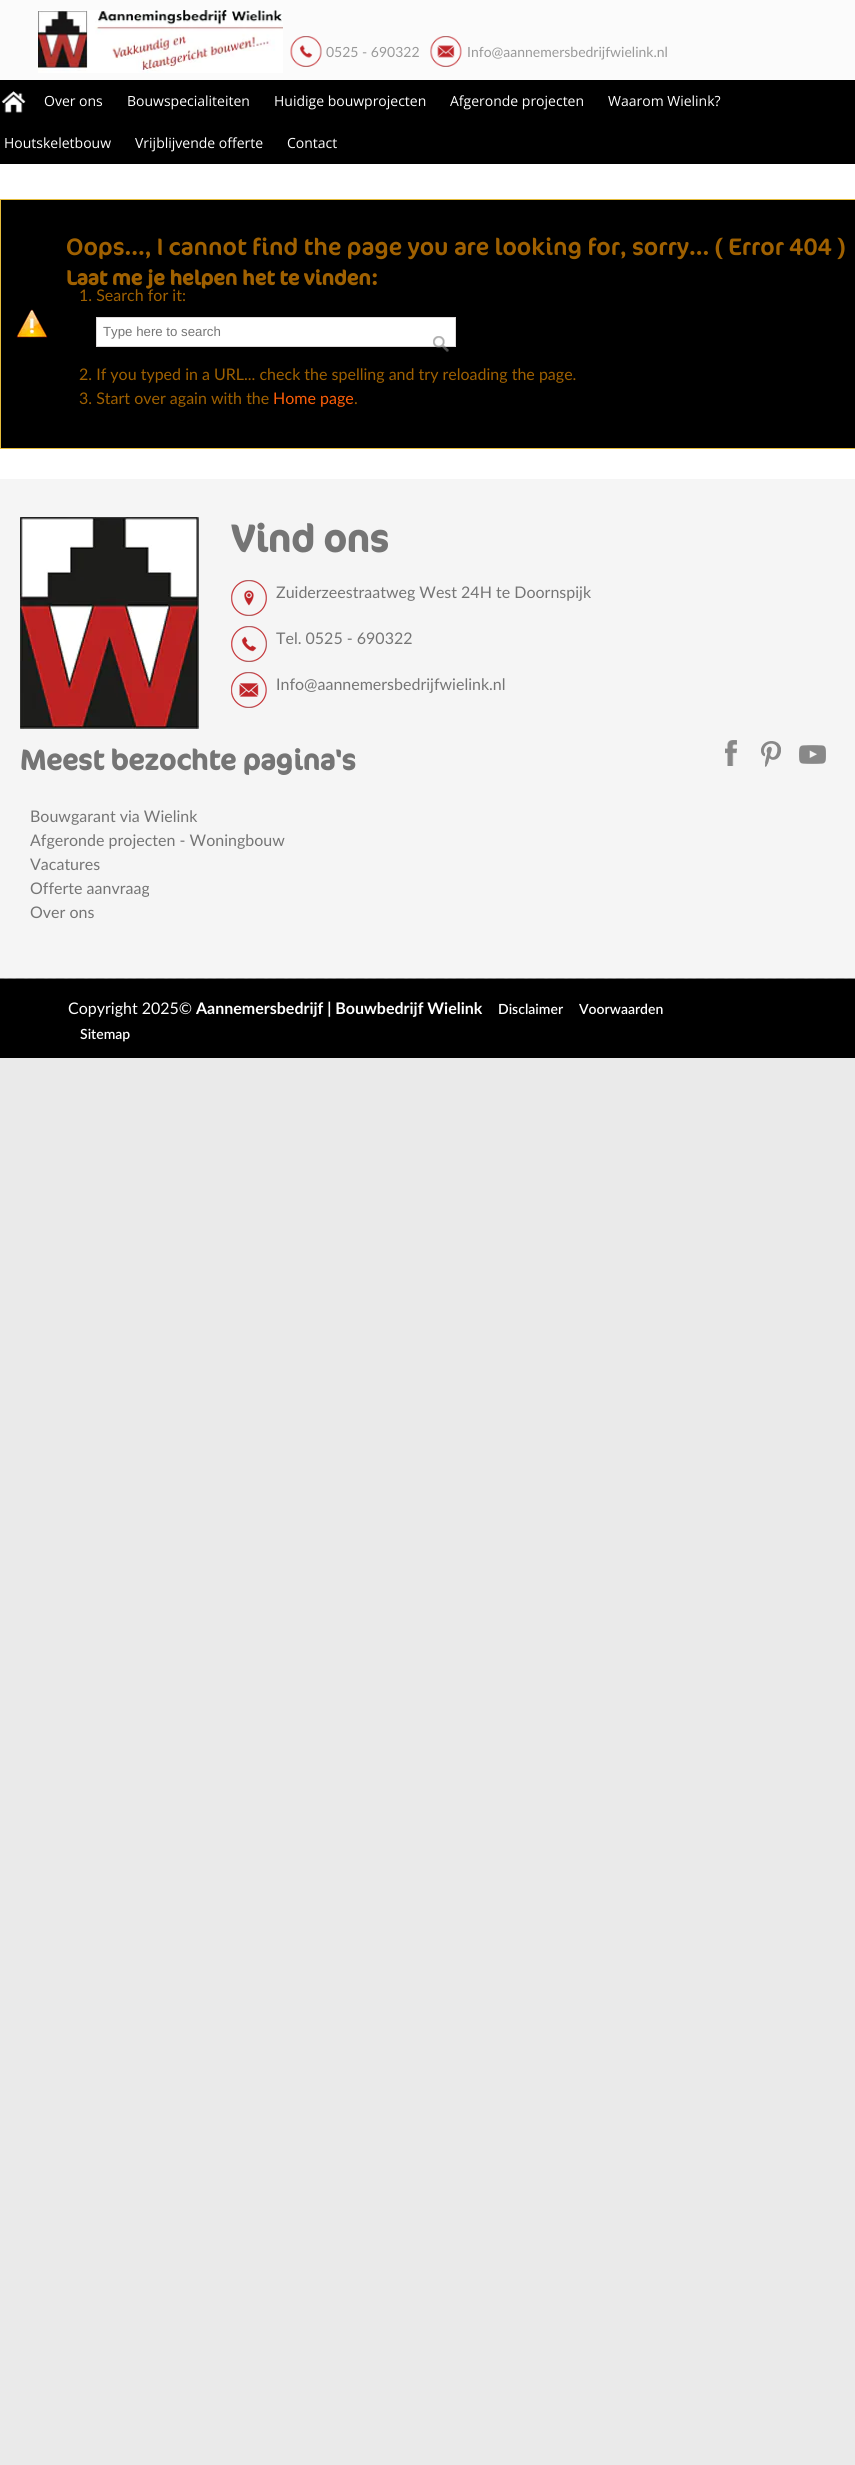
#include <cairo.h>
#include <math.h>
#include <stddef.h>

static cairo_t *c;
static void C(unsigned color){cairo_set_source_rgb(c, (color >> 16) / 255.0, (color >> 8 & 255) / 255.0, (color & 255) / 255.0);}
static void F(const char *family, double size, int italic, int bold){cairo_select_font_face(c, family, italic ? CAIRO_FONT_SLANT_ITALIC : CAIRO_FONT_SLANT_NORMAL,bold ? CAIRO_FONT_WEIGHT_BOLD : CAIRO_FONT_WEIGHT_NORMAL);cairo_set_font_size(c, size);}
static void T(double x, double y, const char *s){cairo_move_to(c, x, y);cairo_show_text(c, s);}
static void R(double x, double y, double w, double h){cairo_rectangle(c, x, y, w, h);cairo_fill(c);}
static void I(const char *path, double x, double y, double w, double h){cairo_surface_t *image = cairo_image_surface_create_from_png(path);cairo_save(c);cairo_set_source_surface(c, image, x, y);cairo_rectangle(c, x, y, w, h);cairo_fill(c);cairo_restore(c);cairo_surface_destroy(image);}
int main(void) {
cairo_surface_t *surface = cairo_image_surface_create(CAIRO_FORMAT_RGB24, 855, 2465);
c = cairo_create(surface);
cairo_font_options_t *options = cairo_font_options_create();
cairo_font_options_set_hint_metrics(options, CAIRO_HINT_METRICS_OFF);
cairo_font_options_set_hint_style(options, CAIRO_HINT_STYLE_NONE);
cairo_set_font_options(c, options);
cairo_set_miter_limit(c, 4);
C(0xeaeaea);
cairo_paint(c);
C(0xfbfbfb);
R(0,0,855,80);
I("1.png",38,10,245,63);
I("2.png",290,36,32,31);
F("Lato",14,0,0);
C(0x999999);
T(326,57,"0525 - 690322");
I("3.png",430,36,32,31);
T(467,57,"Info@aannemersbedrijfwielink.nl");
C(0x000000);
R(0,80,855,84);
I("4.png",1,91,25,22);
F("Open Sans",14,0,0);
C(0xffffff);
T(44,106,"Over ons");
T(127,106,"Bouwspecialiteiten");
T(274,106,"Huidige bouwprojecten");
T(450,106,"Afgeronde projecten");
T(608,106,"Waarom Wielink?");
T(4,148,"Houtskeletbouw");
T(135,148,"Vrijblijvende offerte");
T(287,148,"Contact");
R(0,164,855,315);
C(0x000000);
cairo_rectangle(c,.5,199.5,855,249);
cairo_fill_preserve(c);
C(0xe5bc3b);
cairo_set_line_width(c,1);
cairo_stroke(c);
F("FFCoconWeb",24,0,0);
C(0x9f6000);
T(66,255,"Oops..., I cannot find the page you are looking for, sorry... ( Error 404 )");
I("5.png",16,309,32,29);
F("FFCoconWeb",20.75,0,1);
T(66,285,"Laat me je helpen het te vinden:");
F("Lato",16,0,0);
T(79,301,"1. Search for it:");
C(0xffffff);
cairo_rectangle(c,96.5,317.5,359,29);
cairo_fill_preserve(c);
C(0xddd9d9);
cairo_stroke(c);
F("Liberation Sans",13.25,0,0);
C(0x757575);
T(103,336,"Type here to search");
I("6.png",433,336,16,16);
F("Lato",16,0,0);
C(0x9f6000);
T(79,380,"2. If you typed in a URL... check the spelling and try reloading the page.");
T(79,404,"3. Start over again with the");
C(0xfe5e08);
T(273,404,"Home page");
C(0x9f6000);
T(354,404,".");
C(0xf5f5f5);
R(0,479,855,499);
I("7.png",20,517,179,212);
F("FFCoconWeb",38.5,0,1);
C(0x757575);
T(231,552,"Vind ons");
I("8.png",231,580,36,36);
F("Lato",16,0,0);
T(276,598,"Zuiderzeestraatweg West 24H te Doornspijk");
I("9.png",231,626,36,36);
T(276,644,"Tel. 0525 - 690322");
I("10.png",231,672,36,36);
T(276,690,"Info@aannemersbedrijfwielink.nl");
F("FFCoconWeb",28.75,0,1);
T(20,770,"Meest bezochte pagina's");
F("Lato",16,0,0);
T(30,822,"Bouwgarant via Wielink");
T(30,846,"Afgeronde projecten - Woningbouw");
T(30,870,"Vacatures");
T(30,894,"Offerte aanvraag");
T(30,918,"Over ons");
I("11.png",725,740,12,26);
I("12.png",761,741,20,26);
I("13.png",799,745,27,19);
C(0x000000);
R(0,978,855,80);
I("14.png",0,978,855,1);
C(0xffffff);
T(68,1014,"Copyright 2025©");
F("Lato",16,0,1);
T(196,1014,"Aannemersbedrijf | Bouwbedrijf Wielink");
F("Lato SemiBold",14,0,0);
T(498,1014,"Disclaimer");
T(579,1014,"Voorwaarden");
T(80,1039,"Sitemap");
cairo_surface_write_to_png(surface, "o.png");
cairo_font_options_destroy(options);
cairo_destroy(c);
cairo_surface_destroy(surface);
return 0;
}
